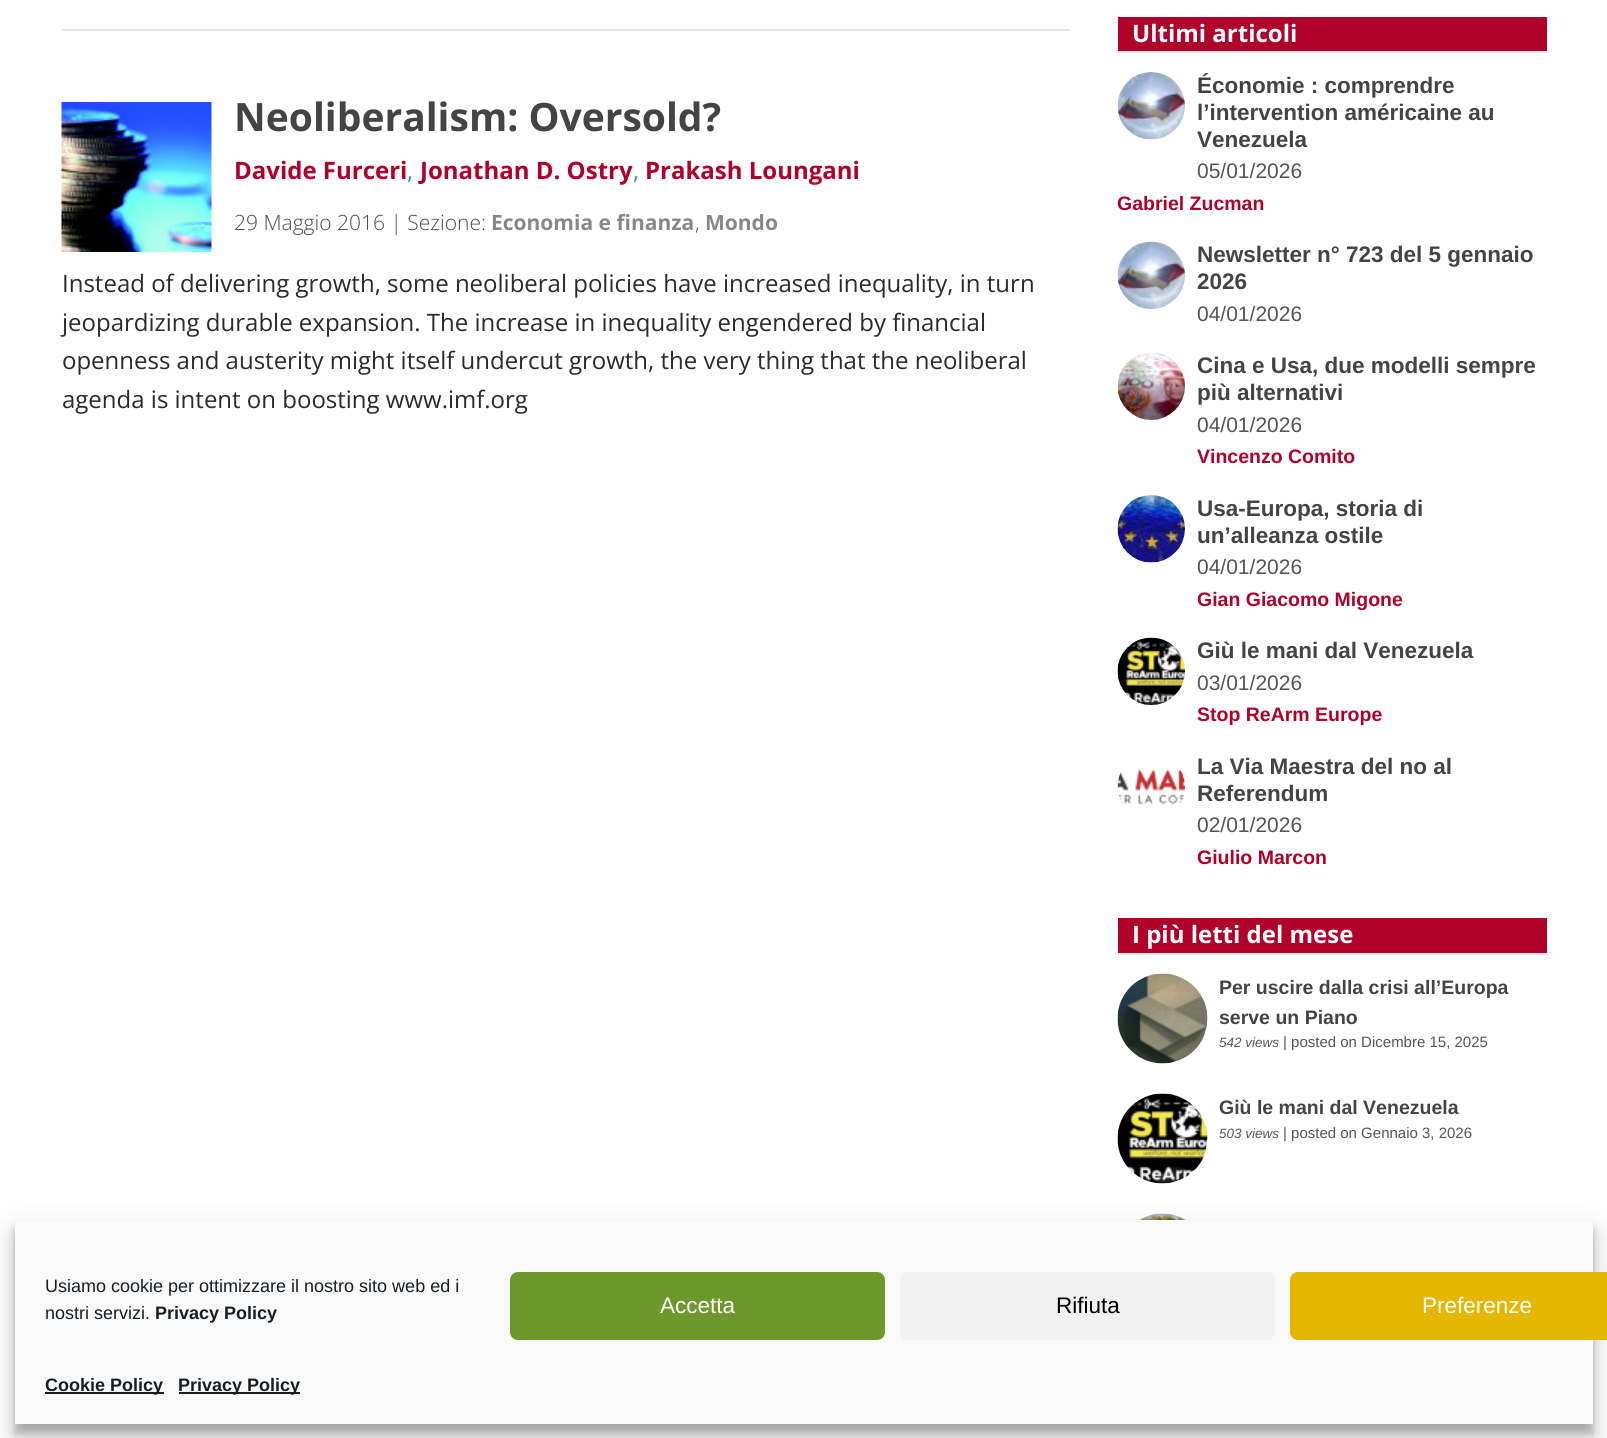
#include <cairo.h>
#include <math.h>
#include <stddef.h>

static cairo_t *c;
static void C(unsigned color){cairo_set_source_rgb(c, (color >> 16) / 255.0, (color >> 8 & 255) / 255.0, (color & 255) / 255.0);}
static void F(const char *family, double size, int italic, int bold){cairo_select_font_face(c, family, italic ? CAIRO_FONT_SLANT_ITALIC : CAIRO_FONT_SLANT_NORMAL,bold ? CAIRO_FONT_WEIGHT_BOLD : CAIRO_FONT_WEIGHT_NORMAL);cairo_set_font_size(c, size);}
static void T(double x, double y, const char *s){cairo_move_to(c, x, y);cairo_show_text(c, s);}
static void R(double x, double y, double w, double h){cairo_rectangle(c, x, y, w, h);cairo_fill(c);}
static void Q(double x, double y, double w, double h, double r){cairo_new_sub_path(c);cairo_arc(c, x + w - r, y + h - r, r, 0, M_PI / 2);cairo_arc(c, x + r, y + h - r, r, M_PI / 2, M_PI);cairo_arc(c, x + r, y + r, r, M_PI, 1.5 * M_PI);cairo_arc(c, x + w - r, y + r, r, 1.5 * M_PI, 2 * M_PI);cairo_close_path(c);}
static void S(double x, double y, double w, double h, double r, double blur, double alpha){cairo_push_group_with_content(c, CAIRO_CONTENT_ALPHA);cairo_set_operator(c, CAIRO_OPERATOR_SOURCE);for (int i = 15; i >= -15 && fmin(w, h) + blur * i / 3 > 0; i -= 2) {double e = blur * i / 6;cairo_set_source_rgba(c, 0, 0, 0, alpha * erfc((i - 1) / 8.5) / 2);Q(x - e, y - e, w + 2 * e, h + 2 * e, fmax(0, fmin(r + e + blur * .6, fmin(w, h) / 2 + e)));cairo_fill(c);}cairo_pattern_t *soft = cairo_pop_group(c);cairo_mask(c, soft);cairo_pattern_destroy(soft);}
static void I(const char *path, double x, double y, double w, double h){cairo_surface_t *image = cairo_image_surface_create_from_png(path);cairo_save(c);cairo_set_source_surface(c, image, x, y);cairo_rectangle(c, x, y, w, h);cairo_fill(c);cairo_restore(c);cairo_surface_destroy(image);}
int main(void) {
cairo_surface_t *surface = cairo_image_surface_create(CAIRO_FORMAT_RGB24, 1607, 1438);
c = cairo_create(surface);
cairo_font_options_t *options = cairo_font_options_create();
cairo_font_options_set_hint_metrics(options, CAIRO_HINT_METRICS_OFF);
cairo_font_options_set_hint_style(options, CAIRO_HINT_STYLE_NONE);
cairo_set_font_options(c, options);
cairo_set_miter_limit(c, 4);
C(0xffffff);
cairo_paint(c);
C(0xe6e6e6);
R(62,29,1008,2);
I("1.png",61,102,151,150);
F("Open Sans",39,0,1);
C(0x444444);
T(234,131,"Neoliberalism: Oversold?");
F("Open Sans",24,0,1);
C(0xb0012a);
T(234,179,"Davide Furceri");
F("Open Sans",24,0,0);
C(0x428bca);
T(407,179,",");
F("Open Sans",24,0,1);
C(0xb0012a);
T(420,179,"Jonathan D. Ostry");
F("Open Sans",24,0,0);
C(0x428bca);
T(633,179,",");
F("Open Sans",24,0,1);
C(0xb0012a);
T(645,179,"Prakash Loungani");
F("Open Sans Light",21,0,0);
C(0x4c4c4c);
T(234,230,"29 Maggio 2016 | Sezione:");
F("Open Sans",21,0,1);
C(0x888888);
T(491,230,"Economia e finanza");
F("Open Sans Light",21,0,0);
C(0x4c4c4c);
T(695,230,",");
F("Open Sans",21,0,1);
C(0x888888);
T(705,230,"Mondo");
F("Open Sans",24,0,0);
C(0x2b2b2b);
T(62,292,"Instead of delivering growth, some neoliberal policies have increased inequality, in turn");
T(62,331,"jeopardizing durable expansion. The increase in inequality engendered by financial");
T(62,369,"openness and austerity might itself undercut growth, the very thing that the neoliberal");
T(62,408,"agenda is intent on boosting www.imf.org");
C(0xb0012a);
R(1118,17,429,34);
C(0xe6e6e6);
R(1118,51,429,2);
F("Open Sans",24,0,1);
C(0xffffff);
T(1132,42,"Ultimi articoli");
I("2.png",1117,72,68,68);
F("Liberation Sans",22.5,0,1);
C(0x444444);
T(1197,93,"Économie : comprendre");
T(1197,120,"l’intervention américaine au");
T(1197,147,"Venezuela");
F("Liberation Sans",21,0,0);
C(0x555555);
T(1197,178,"05/01/2026");
F("Liberation Sans",19.5,0,1);
C(0xb0012a);
T(1117,210,"Gabriel Zucman");
I("3.png",1117,241,68,68);
F("Liberation Sans",22.5,0,1);
C(0x444444);
T(1197,262,"Newsletter n° 723 del 5 gennaio");
T(1197,289,"2026");
F("Liberation Sans",21,0,0);
C(0x555555);
T(1197,321,"04/01/2026");
I("4.png",1117,353,68,67);
F("Liberation Sans",22.5,0,1);
C(0x444444);
T(1197,373,"Cina e Usa, due modelli sempre");
T(1197,400,"più alternativi");
F("Liberation Sans",21,0,0);
C(0x555555);
T(1197,432,"04/01/2026");
F("Liberation Sans",19.5,0,1);
C(0xb0012a);
T(1197,463,"Vincenzo Comito");
I("5.png",1117,495,68,68);
F("Liberation Sans",22.5,0,1);
C(0x444444);
T(1197,516,"Usa-Europa, storia di");
T(1197,543,"un’alleanza ostile");
F("Liberation Sans",21,0,0);
C(0x555555);
T(1197,574,"04/01/2026");
F("Liberation Sans",19.5,0,1);
C(0xb0012a);
T(1197,606,"Gian Giacomo Migone");
I("6.png",1117,637,68,68);
F("Liberation Sans",22.5,0,1);
C(0x444444);
T(1197,658,"Giù le mani dal Venezuela");
F("Liberation Sans",21,0,0);
C(0x555555);
T(1197,690,"03/01/2026");
F("Liberation Sans",19.5,0,1);
C(0xb0012a);
T(1197,721,"Stop ReArm Europe");
I("7.png",1117,769,68,36);
F("Liberation Sans",22.5,0,1);
C(0x444444);
T(1197,774,"La Via Maestra del no al");
T(1197,801,"Referendum");
F("Liberation Sans",21,0,0);
C(0x555555);
T(1197,832,"02/01/2026");
F("Liberation Sans",19.5,0,1);
C(0xb0012a);
T(1197,864,"Giulio Marcon");
R(1118,918,429,35);
C(0xe6e6e6);
R(1118,953,429,2);
F("Open Sans",24,0,1);
C(0xffffff);
T(1132,943,"I più letti del mese");
I("8.png",1117,973,91,91);
F("Liberation Sans",19.5,0,1);
C(0x444444);
T(1219,994,"Per uscire dalla crisi all’Europa");
T(1219,1024,"serve un Piano");
F("Liberation Sans",13.5,1,0);
C(0x555555);
T(1219,1047,"542 views");
F("Liberation Sans",15,0,0);
T(1283,1047,"| posted on Dicembre 15, 2025");
I("9.png",1117,1093,91,91);
F("Liberation Sans",19.5,0,1);
C(0x444444);
T(1219,1114,"Giù le mani dal Venezuela");
F("Liberation Sans",13.5,1,0);
C(0x555555);
T(1219,1138,"503 views");
F("Liberation Sans",15,0,0);
T(1283,1138,"| posted on Gennaio 3, 2026");
I("10.png",1139,1213,47,7);
C(0x000000);
S(15,1229,1578,204,0,4.5,.23);
S(15,1235,1578,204,0,15,.19);
C(0xf9f9f9);
R(15,1220,1578,204);
F("Liberation Sans",18,0,0);
C(0x191e23);
T(45,1292,"Usiamo cookie per ottimizzare il nostro sito web ed i");
T(45,1319,"nostri servizi.");
F("Liberation Sans",18,0,1);
T(155,1319,"Privacy Policy");
C(0x6d992c);
Q(511,1273,373,66,7);
cairo_fill_preserve(c);
cairo_stroke(c);
F("Liberation Sans",22.5,0,0);
C(0xffffff);
T(660,1313,"Accetta");
C(0xf1f1f1);
Q(900,1272,375,68,8);
cairo_fill(c);
C(0x000000);
T(1056,1313,"Rifiuta");
C(0xe5b700);
Q(1291,1273,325,66,7);
cairo_fill_preserve(c);
cairo_stroke(c);
C(0xffffff);
T(1422,1313,"Preferenze");
C(0x191e23);
R(45,1392,119,2);
F("Liberation Sans",18,0,1);
T(45,1391,"Cookie Policy");
R(179,1392,121,2);
T(178,1391,"Privacy Policy");
cairo_surface_write_to_png(surface, "o.png");
cairo_font_options_destroy(options);
cairo_destroy(c);
cairo_surface_destroy(surface);
return 0;
}
